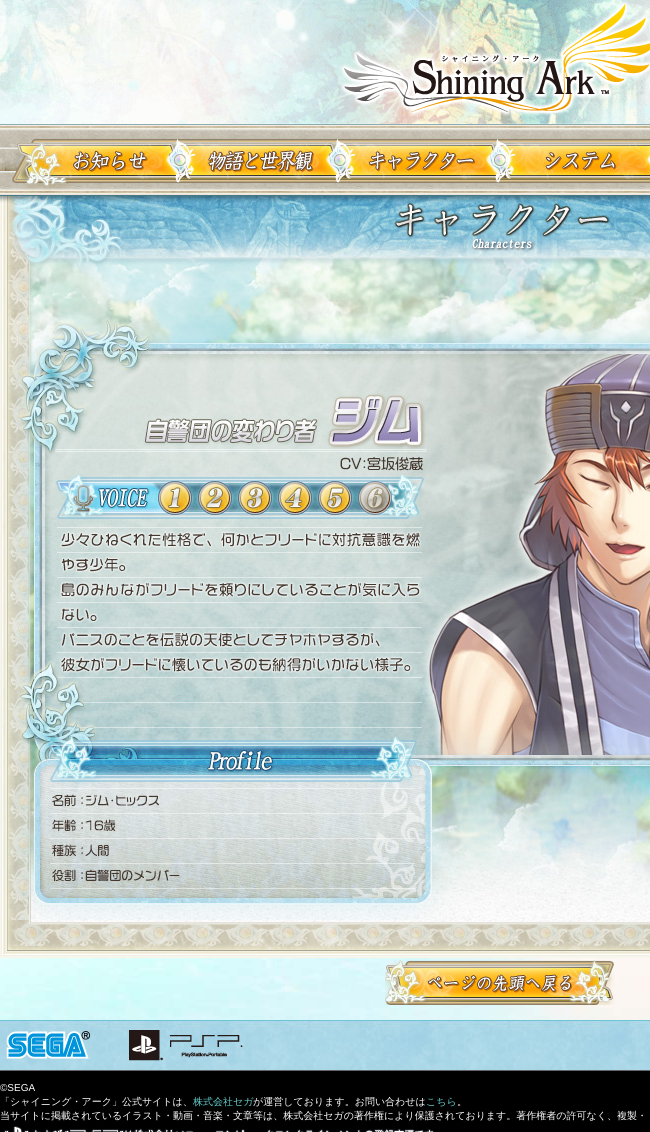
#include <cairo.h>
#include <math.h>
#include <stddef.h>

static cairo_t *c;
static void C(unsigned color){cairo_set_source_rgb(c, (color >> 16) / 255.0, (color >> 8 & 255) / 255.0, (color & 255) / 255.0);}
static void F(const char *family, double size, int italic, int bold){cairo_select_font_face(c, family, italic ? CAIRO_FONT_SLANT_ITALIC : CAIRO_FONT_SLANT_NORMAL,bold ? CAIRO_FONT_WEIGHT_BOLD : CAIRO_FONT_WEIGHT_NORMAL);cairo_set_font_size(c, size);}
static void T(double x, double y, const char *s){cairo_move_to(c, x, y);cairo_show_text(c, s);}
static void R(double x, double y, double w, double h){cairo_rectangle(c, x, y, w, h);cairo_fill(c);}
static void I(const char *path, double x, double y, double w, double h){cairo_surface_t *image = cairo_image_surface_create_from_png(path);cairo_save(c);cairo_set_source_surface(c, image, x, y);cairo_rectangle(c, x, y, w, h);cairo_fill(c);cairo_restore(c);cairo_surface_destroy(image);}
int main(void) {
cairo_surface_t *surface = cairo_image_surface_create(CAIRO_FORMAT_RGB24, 650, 1132);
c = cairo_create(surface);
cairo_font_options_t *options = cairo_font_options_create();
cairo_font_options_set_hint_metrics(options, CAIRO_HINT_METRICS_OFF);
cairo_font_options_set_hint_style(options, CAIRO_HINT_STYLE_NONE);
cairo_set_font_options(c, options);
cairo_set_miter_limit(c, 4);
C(0xffffff);
cairo_paint(c);
I("1.png",0,958,650,62);
I("2.png",0,0,650,125);
I("3.png",340,0,310,116);
I("4.png",0,125,180,70);
I("5.png",180,125,160,70);
I("6.png",340,125,160,70);
I("7.png",500,125,150,70);
I("8.png",0,195,650,75);
I("9.png",394,202,216,49);
I("10.png",0,520,2,400);
I("11.png",0,270,650,250);
I("12.png",1,520,649,250);
I("13.png",2,770,648,150);
I("14.png",56,475,368,45);
I("15.png",157,480,37,35);
I("16.png",157,480,37,35);
I("17.png",196,480,38,35);
I("18.png",196,481,38,34);
I("19.png",236,480,38,35);
I("20.png",236,480,38,35);
I("21.png",276,480,38,35);
I("22.png",276,480,38,35);
I("23.png",316,480,38,35);
I("24.png",316,481,38,34);
I("25.png",356,480,37,35);
I("26.png",0,920,650,38);
I("27.png",385,960,230,45);
I("28.png",0,1020,650,50);
I("29.png",6,1031,84,28);
I("30.png",129,1030,114,31);
C(0x000000);
R(0,1071,650,61);
C(0x666666);
R(0,1070,650,1);
F("Liberation Sans",10,0,0);
C(0xffffff);
T(0,1091,"©SEGA");
F("WenQuanYi Zen Hei Medium",10,0,0);
T(0,1105,"「シャイニング・アーク」公式サイトは、");
C(0x66cccc);
T(193,1105,"株式会社セガ");
C(0xffffff);
T(253,1105,"が運営しております。お問い合わせは");
C(0x66cccc);
T(426,1105,"こちら");
C(0xffffff);
T(457,1105,"。");
T(0,1119,"当サイトに掲載されているイラスト・動画・音楽・文章等は、株式会社セガの著作権により保護されております。著作権者の許可なく、複製・");
I("31.png",4,1126,430,6);
cairo_surface_write_to_png(surface, "o.png");
cairo_font_options_destroy(options);
cairo_destroy(c);
cairo_surface_destroy(surface);
return 0;
}
